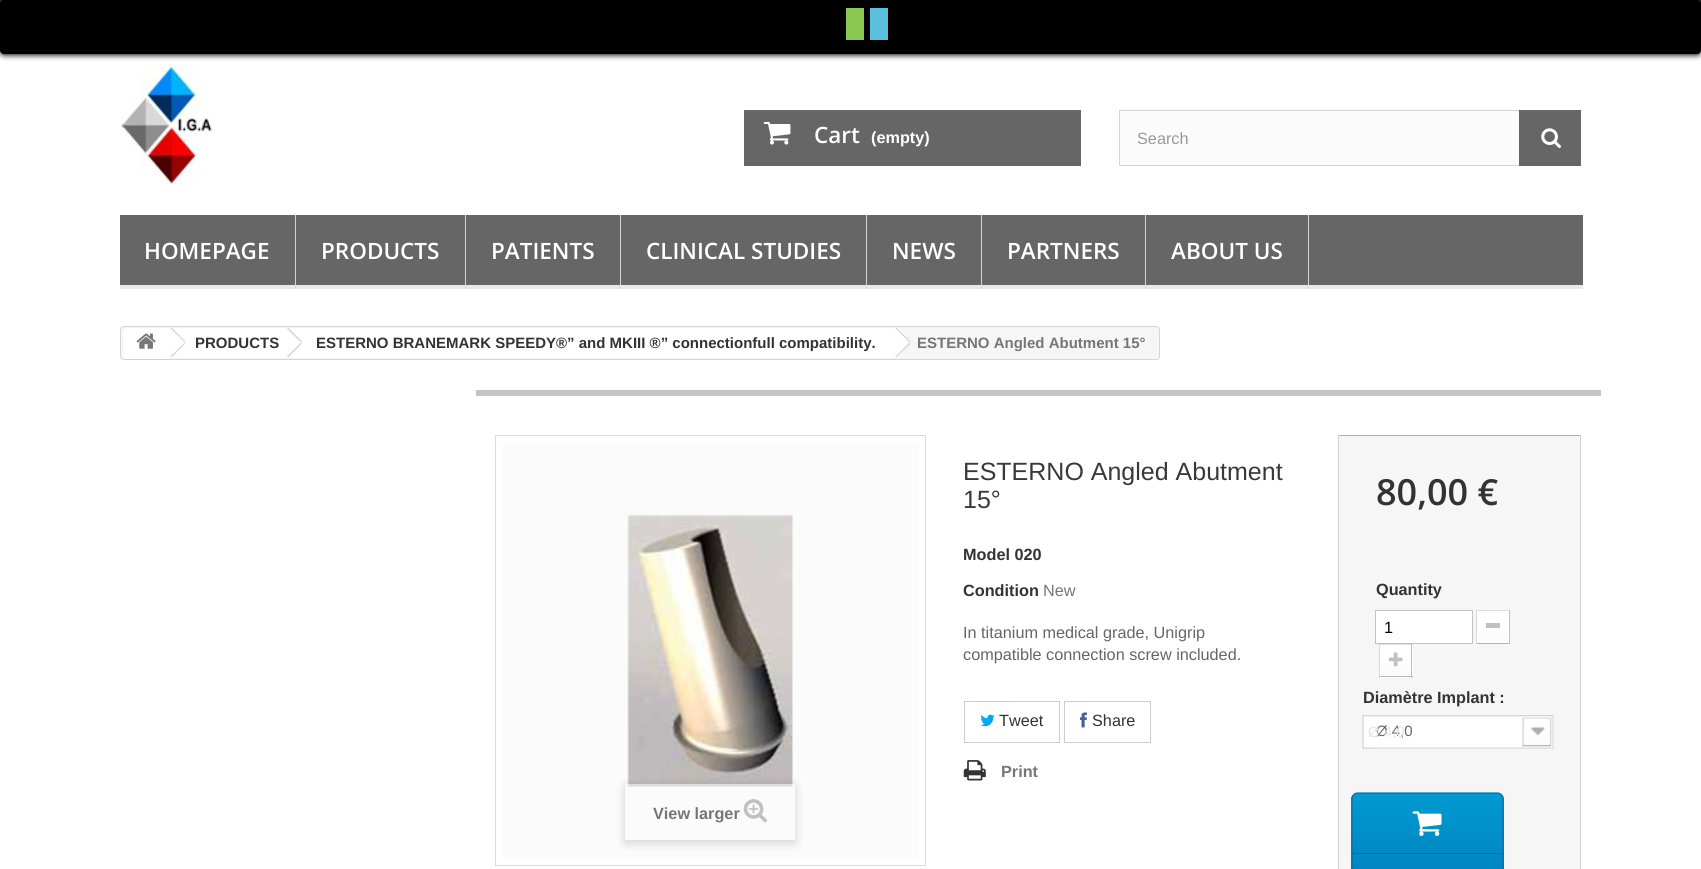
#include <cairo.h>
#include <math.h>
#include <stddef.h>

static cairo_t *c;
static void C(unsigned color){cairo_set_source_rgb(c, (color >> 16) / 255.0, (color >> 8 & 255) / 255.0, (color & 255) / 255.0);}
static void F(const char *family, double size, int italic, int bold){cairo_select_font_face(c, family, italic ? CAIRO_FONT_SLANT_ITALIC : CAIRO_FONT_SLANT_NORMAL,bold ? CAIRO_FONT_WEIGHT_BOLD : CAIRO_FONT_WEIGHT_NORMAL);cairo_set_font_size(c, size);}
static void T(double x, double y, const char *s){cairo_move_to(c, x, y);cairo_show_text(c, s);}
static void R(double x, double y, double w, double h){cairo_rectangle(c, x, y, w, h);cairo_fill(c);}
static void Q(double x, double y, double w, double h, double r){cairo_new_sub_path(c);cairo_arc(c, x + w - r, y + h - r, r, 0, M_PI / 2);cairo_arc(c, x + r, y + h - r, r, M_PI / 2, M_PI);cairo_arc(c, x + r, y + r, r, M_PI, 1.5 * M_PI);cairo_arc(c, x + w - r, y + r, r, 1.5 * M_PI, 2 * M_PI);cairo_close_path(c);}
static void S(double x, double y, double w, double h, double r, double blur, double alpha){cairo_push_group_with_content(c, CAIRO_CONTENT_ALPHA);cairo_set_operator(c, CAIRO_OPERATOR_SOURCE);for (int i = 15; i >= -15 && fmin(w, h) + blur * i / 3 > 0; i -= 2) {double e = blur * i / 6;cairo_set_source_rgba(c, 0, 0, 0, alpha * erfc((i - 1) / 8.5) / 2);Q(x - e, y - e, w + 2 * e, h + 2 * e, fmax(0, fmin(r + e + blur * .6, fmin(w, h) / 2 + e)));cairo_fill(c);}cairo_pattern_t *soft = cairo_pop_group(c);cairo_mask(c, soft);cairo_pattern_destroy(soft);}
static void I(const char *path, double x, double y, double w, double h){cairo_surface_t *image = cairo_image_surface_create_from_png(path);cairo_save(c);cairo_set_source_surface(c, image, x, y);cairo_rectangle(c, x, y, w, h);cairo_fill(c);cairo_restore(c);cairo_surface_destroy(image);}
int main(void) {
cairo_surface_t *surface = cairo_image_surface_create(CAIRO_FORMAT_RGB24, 1701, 869);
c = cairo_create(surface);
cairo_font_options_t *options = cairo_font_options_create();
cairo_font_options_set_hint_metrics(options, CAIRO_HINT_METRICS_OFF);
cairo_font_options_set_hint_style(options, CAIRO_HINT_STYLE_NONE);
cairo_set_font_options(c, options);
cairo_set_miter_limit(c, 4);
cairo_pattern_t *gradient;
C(0xffffff);
cairo_paint(c);
C(0x333333);
R(0,0,1701,4);
C(0x000000);
S(0,1,1701,54,4,3,1);
C(0x000000);
Q(.5,.5,1700,53,3.5);
cairo_fill_preserve(c);
cairo_set_line_width(c,1);
cairo_stroke(c);
C(0x8bc954);
R(846,8,18,32);
C(0x5bc0de);
R(870,8,18,32);
I("1.png",121,66,91,118);
C(0x666666);
R(744,110,337,56);
I("2.png",763,121,28,24);
F("Open Sans SemiBold",22.5,0,0);
C(0xffffff);
T(814,143,"Cart");
F("Liberation Sans",16.25,0,1);
T(871,143,"(empty)");
C(0xfbfbfb);
R(1120,111,399,54);
cairo_rectangle(c,1119.5,110.5,461,55);
C(0xd6d4d4);
cairo_stroke(c);
F("Liberation Sans",16.25,0,0);
C(0x999999);
T(1137,144,"Search");
C(0x666666);
R(1519,110,62,56);
I("3.png",1541,128,20,20);
R(120,215,1463,70);
C(0xe9e9e9);
R(120,285,1463,4);
C(0xd6d4d4);
R(295,215,1,74);
F("Open Sans SemiBold",22.5,0,0);
C(0xffffff);
T(144,259,"HOMEPAGE");
C(0xd6d4d4);
R(465,215,1,74);
C(0xffffff);
T(321,259,"PRODUCTS");
C(0xd6d4d4);
R(620,215,1,74);
C(0xffffff);
T(491,259,"PATIENTS");
C(0xd6d4d4);
R(866,215,1,74);
C(0xffffff);
T(646,259,"CLINICAL STUDIES");
C(0xd6d4d4);
R(981,215,1,74);
C(0xffffff);
T(892,259,"NEWS");
C(0xd6d4d4);
R(1145,215,1,74);
C(0xffffff);
T(1007,259,"PARTNERS");
C(0xd6d4d4);
R(1308,215,1,74);
C(0xffffff);
T(1171,259,"ABOUT US");
C(0xf6f6f6);
Q(120.5,326.5,1039,33,3.5);
cairo_fill_preserve(c);
C(0xd6d4d4);
cairo_stroke(c);
C(0xffffff);
cairo_new_path(c);
cairo_move_to(c,127,328);
cairo_line_to(c,170,328);
cairo_line_to(c,170,359);
cairo_line_to(c,127,359);
cairo_curve_to(c,125,359,123,357,123,355);
cairo_line_to(c,123,332);
cairo_curve_to(c,123,330,125,328,127,328);
cairo_close_path(c);
cairo_fill(c);
I("4.png",136,333,20,16);
R(170,328,119,30);
C(0xd6d4d4);
cairo_new_path(c);
cairo_move_to(c,171.5,327.5);
cairo_line_to(c,185.5,341.5);
cairo_line_to(c,185,342.5);
cairo_line_to(c,170.5,328.5);
cairo_close_path(c);
cairo_fill(c);
cairo_new_path(c);
cairo_move_to(c,185,342.5);
cairo_line_to(c,185.5,343.5);
cairo_line_to(c,171.5,357.5);
cairo_line_to(c,170.5,356.5);
cairo_close_path(c);
cairo_fill(c);
F("Liberation Sans",15,0,1);
C(0x333333);
T(195,348,"PRODUCTS");
C(0xffffff);
cairo_new_path(c);
cairo_move_to(c,301,328.5);
cairo_line_to(c,300.5,328);
cairo_line_to(c,298,328);
cairo_line_to(c,297.5,328.5);
cairo_line_to(c,285.5,340.5);
cairo_curve_to(c,284.5,341.5,284.5,343.5,285.5,344.5);
cairo_line_to(c,297.5,356.5);
cairo_curve_to(c,298.5,357.5,300,357.5,301,356.5);
cairo_line_to(c,313.5,344.5);
cairo_curve_to(c,314.5,343.5,314.5,341.5,313.5,340.5);
cairo_close_path(c);
cairo_fill(c);
R(289,328,605,30);
C(0xd6d4d4);
cairo_new_path(c);
cairo_move_to(c,288,327.5);
cairo_line_to(c,302,341.5);
cairo_line_to(c,301,342.5);
cairo_line_to(c,287,328.5);
cairo_close_path(c);
cairo_fill(c);
cairo_new_path(c);
cairo_move_to(c,301,342.5);
cairo_line_to(c,302,343.5);
cairo_line_to(c,288,357.5);
cairo_line_to(c,287,356.5);
cairo_close_path(c);
cairo_fill(c);
C(0x333333);
T(316,348,"ESTERNO BRANEMARK SPEEDY®” and MKIII ®” connectionfull compatibility.");
C(0xffffff);
cairo_new_path(c);
cairo_move_to(c,897,328.5);
cairo_curve_to(c,896.5,328,896,328,895,328);
cairo_curve_to(c,893.5,328,893,329,891.5,330.5);
cairo_line_to(c,883,338.5);
cairo_curve_to(c,879.5,342,879.5,343,883,346.5);
cairo_line_to(c,887,350.5);
cairo_curve_to(c,895.5,358.5,893.5,360,901,352.5);
cairo_line_to(c,905.5,348.5);
cairo_curve_to(c,907,347,912.5,343.5,909.5,340.5);
cairo_close_path(c);
cairo_fill(c);
C(0xd6d4d4);
cairo_new_path(c);
cairo_move_to(c,896,327.5);
cairo_line_to(c,910.5,341.5);
cairo_line_to(c,909.5,342.5);
cairo_line_to(c,895.5,328.5);
cairo_close_path(c);
cairo_fill(c);
cairo_new_path(c);
cairo_move_to(c,909.5,342.5);
cairo_line_to(c,910.5,343.5);
cairo_line_to(c,896,357.5);
cairo_line_to(c,895.5,356.5);
cairo_close_path(c);
cairo_fill(c);
C(0x777676);
T(917,348,"ESTERNO Angled Abutment 15°");
C(0xc4c4c4);
R(476,390,1125,6);
F("Liberation Sans",25,0,0);
C(0x3a3939);
T(963,480,"ESTERNO Angled Abutment");
T(963,508,"15°");
F("Liberation Sans",16.25,0,1);
C(0x333333);
T(963,560,"Model 020");
T(963,596,"Condition");
F("Liberation Sans",16.25,0,0);
C(0x777676);
T(1043,596,"New");
C(0x666666);
T(963,638,"In titanium medical grade, Unigrip");
T(963,660,"compatible connection screw included.");
cairo_rectangle(c,964.5,701.5,95,41);
C(0xcccccc);
cairo_stroke(c);
I("5.png",980,714,15,13);
C(0x333333);
T(999,726,"Tweet");
cairo_rectangle(c,1064.5,701.5,86,41);
C(0xcccccc);
cairo_stroke(c);
I("6.png",1080,712,7,16);
C(0x333333);
T(1092,726,"Share");
I("7.png",963,760,23,21);
F("Liberation Sans",16.25,0,1);
C(0x777676);
T(1001,777,"Print");
C(0xf6f6f6);
R(1339,436,241,433);
C(0xb0afaf);
R(1338,435,243,1);
C(0xd2d0d0);
R(1580,435,1,434);
R(1338,435,1,434);
F("Open Sans SemiBold",36,0,0);
C(0x333333);
T(1376,505,"80,00 €");
F("Liberation Sans",16.25,0,1);
T(1376,595,"Quantity");
C(0xffffff);
cairo_rectangle(c,1375.5,610.5,97,33);
cairo_fill_preserve(c);
C(0xbdc2c9);
cairo_stroke(c);
F("Liberation Sans",16.25,0,0);
C(0x000000);
T(1384,633,"1");
C(0xffffff);
R(1477,611,31,32);
C(0xdedcdc);
R(1476,610,34,1);
C(0xc1bfbf);
R(1509,610,1,34);
C(0xb5b4b4);
R(1476,643,34,1);
C(0xdad8d8);
R(1476,610,1,34);
gradient = cairo_pattern_create_linear(1493,584,1493,613);
cairo_pattern_add_color_stop_rgba(gradient,0,1,1,1,1);
cairo_pattern_add_color_stop_rgba(gradient,1,0.984,0.984,0.984,1);
cairo_set_source(c,gradient);
cairo_pattern_destroy(gradient);
R(1478,612,31,1);
gradient = cairo_pattern_create_linear(1493,613,1493,641);
cairo_pattern_add_color_stop_rgba(gradient,0,1,1,1,1);
cairo_pattern_add_color_stop_rgba(gradient,1,0.984,0.984,0.984,1);
cairo_set_source(c,gradient);
cairo_pattern_destroy(gradient);
R(1479,631,29,10);
cairo_rectangle(c,1478.5,611.5,30,31);
C(0xffffff);
cairo_stroke(c);
C(0xc0c0c0);
R(1486,623,14,5);
C(0xffffff);
R(1380,645,33,33);
C(0xdedcdc);
R(1379,644,34,1);
C(0xc1bfbf);
R(1411,644,1,34);
C(0xb5b4b4);
R(1379,676,34,1);
C(0xdad8d8);
R(1379,644,1,34);
gradient = cairo_pattern_create_linear(1396,646,1396,675);
cairo_pattern_add_color_stop_rgba(gradient,0,1,1,1,1);
cairo_pattern_add_color_stop_rgba(gradient,1,0.984,0.984,0.984,1);
cairo_set_source(c,gradient);
cairo_pattern_destroy(gradient);
R(1381,664,29,11);
I("8.png",1388,652,15,15);
F("Liberation Sans",16.25,0,1);
C(0x333333);
T(1363,703,"Diamètre Implant :");
I("9.png",1362,715,13,34);
I("10.png",1375,715,179,34);
F("Liberation Sans",15,0,0);
C(0x666666);
T(1376,736,"Ø 4,0");
C(0xe5e5e5);
T(1368,737,"Ø 4,0");
cairo_save(c);
Q(1351,793,153,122,6);
cairo_clip(c);
gradient = cairo_pattern_create_linear(1428,674,1428,794);
cairo_pattern_add_color_stop_rgba(gradient,0,0,0.604,0.816,1);
cairo_pattern_add_color_stop_rgba(gradient,1,0,0.478,0.718,1);
cairo_set_source(c,gradient);
cairo_pattern_destroy(gradient);
R(1351,793,153,1);
gradient = cairo_pattern_create_linear(1428,794,1428,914);
cairo_pattern_add_color_stop_rgba(gradient,0,0,0.604,0.816,1);
cairo_pattern_add_color_stop_rgba(gradient,1,0,0.478,0.718,1);
cairo_set_source(c,gradient);
cairo_pattern_destroy(gradient);
R(1351,794,153,75);
cairo_restore(c);
cairo_new_path(c);
cairo_move_to(c,1353.5,795);
cairo_curve_to(c,1354.5,793.5,1356,793,1357.5,793);
cairo_line_to(c,1497.5,793);
cairo_curve_to(c,1499,793,1500.5,793.5,1501.5,795);
C(0x0079b6);
cairo_set_line_width(c,1.2);
cairo_stroke(c);
cairo_new_path(c);
cairo_move_to(c,1501.5,795);
cairo_line_to(c,1503,798);
cairo_line_to(c,1503,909.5);
cairo_line_to(c,1501.5,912.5);
C(0x006fa8);
cairo_stroke(c);
cairo_new_path(c);
cairo_move_to(c,1353.5,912.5);
cairo_line_to(c,1352,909.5);
cairo_line_to(c,1352,798);
cairo_line_to(c,1353.5,795);
cairo_stroke(c);
I("11.png",1412,811,30,25);
R(1353,853,150,1);
cairo_rectangle(c,495.5,435.5,430,430);
C(0xdbdbdb);
cairo_set_line_width(c,1);
cairo_stroke(c);
C(0xfbfbfb);
R(503,443,416,416);
I("12.png",627,514,166,273);
cairo_save(c);
cairo_set_fill_rule(c,CAIRO_FILL_RULE_EVEN_ODD);
cairo_new_path(c);
cairo_move_to(c,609,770);
cairo_line_to(c,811,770);
cairo_line_to(c,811,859);
cairo_line_to(c,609,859);
cairo_close_path(c);
cairo_move_to(c,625,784);
cairo_line_to(c,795,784);
cairo_line_to(c,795,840);
cairo_line_to(c,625,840);
cairo_close_path(c);
cairo_clip(c);
C(0x000000);
S(625,786,170,57,0,5,.16);
cairo_restore(c);
cairo_set_source_rgba(c,1,1,1,0.5);
R(627,784,166,3);
F("Liberation Sans",16.25,0,1);
C(0x777676);
T(653,819,"View larger");
I("13.png",743,799,24,24);
cairo_surface_write_to_png(surface, "o.png");
cairo_font_options_destroy(options);
cairo_destroy(c);
cairo_surface_destroy(surface);
return 0;
}
